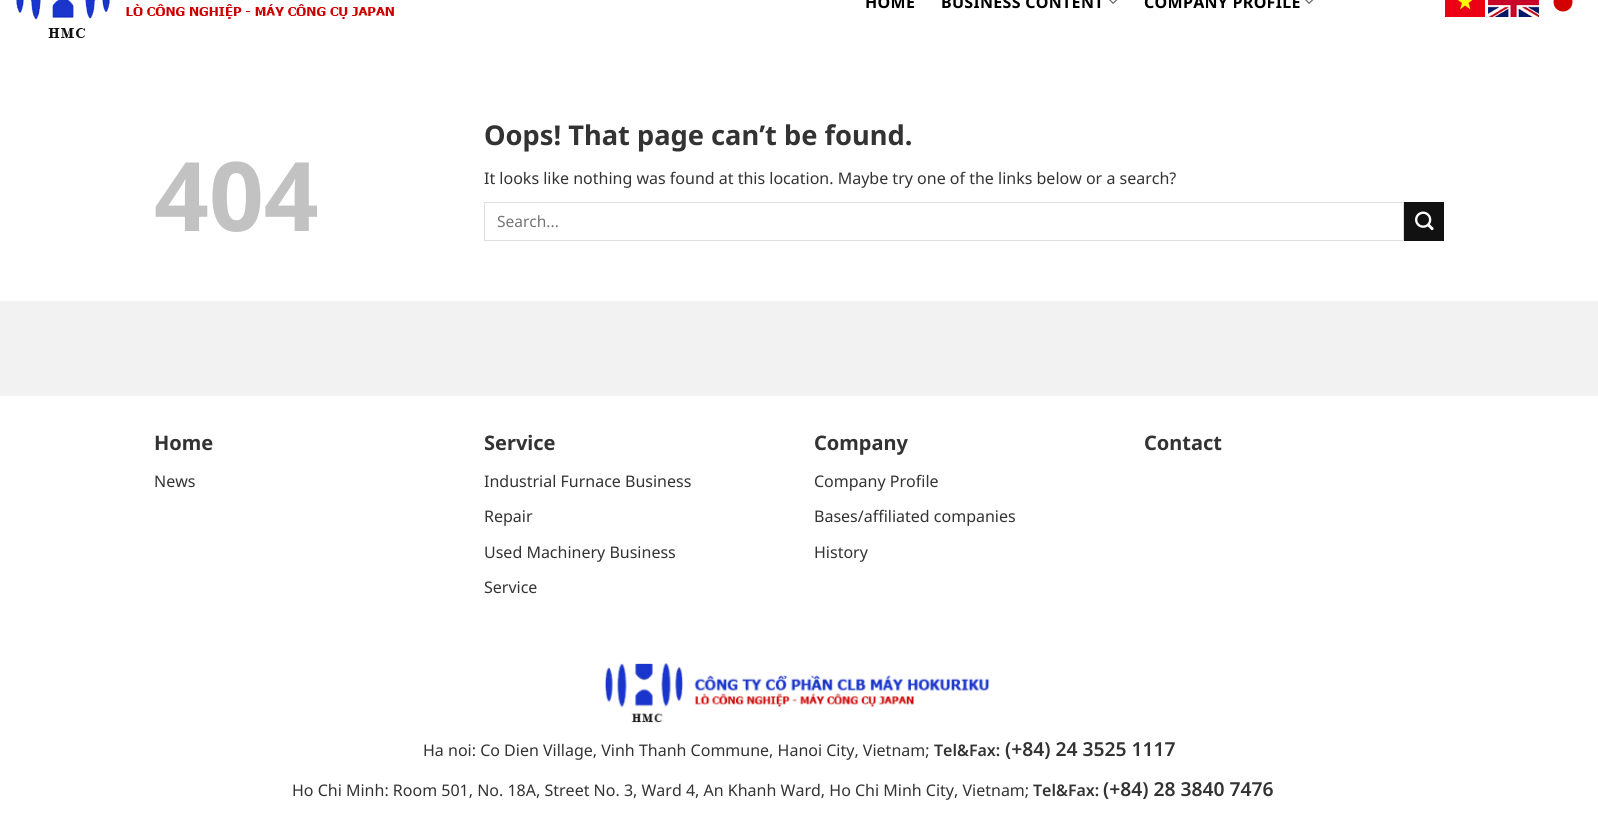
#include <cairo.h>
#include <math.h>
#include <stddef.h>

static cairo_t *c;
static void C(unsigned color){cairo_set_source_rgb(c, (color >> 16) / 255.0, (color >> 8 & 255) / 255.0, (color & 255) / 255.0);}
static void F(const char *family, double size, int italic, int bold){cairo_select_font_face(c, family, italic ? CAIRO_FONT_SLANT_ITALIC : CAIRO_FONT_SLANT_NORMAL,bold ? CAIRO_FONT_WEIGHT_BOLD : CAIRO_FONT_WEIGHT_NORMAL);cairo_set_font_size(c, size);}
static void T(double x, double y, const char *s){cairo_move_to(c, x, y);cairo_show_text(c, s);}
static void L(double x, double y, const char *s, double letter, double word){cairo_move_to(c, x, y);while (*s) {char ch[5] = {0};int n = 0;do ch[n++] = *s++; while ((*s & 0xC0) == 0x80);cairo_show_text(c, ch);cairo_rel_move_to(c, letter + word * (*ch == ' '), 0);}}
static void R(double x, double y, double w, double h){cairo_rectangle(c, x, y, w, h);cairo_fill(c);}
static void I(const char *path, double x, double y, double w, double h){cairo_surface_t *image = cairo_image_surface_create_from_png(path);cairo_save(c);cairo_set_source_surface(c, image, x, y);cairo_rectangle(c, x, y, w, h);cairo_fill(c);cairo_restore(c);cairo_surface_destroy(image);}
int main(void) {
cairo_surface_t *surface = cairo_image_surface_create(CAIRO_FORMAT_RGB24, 1598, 835);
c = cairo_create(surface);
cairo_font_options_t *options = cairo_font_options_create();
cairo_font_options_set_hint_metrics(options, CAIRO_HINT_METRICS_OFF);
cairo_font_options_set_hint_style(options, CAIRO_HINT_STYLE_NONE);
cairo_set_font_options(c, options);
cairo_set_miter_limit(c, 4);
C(0xffffff);
cairo_paint(c);
I("1.png",16,0,378,38);
F("Noto Sans",16,0,1);
C(0x000000);
L(865,8,"HOME",.3,0);
L(941,8,"BUSINESS CONTENT",.3,0);
I("2.png",1109,0,9,4);
L(1144,8,"COMPANY PROFILE",.3,0);
I("2.png",1305,0,9,4);
C(0xec0015);
R(1445,0,40,17);
C(0xffff00);
cairo_set_fill_rule(c,CAIRO_FILL_RULE_EVEN_ODD);
cairo_new_path(c);
cairo_move_to(c,1470.5,9.5);
cairo_line_to(c,1465,5.5);
cairo_line_to(c,1460,9.5);
cairo_line_to(c,1462,3);
cairo_line_to(c,1456.5,-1);
cairo_line_to(c,1463,-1);
cairo_line_to(c,1465,-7.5);
cairo_line_to(c,1467,-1);
cairo_line_to(c,1473.5,-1);
cairo_line_to(c,1468.5,3);
cairo_close_path(c);
cairo_fill(c);
I("3.png",1488,0,51,17);
C(0xd30000);
cairo_arc(c,1563,2,9.5,0,2 * M_PI);
cairo_fill(c);
F("Noto Sans",96,0,1);
C(0xc2c2c2);
T(154,231,"404");
F("Noto Sans",27.25,0,1);
C(0x333333);
T(484,145,"Oops! That page can’t be found.");
F("Noto Sans",16,0,0);
T(484,184,"It looks like nothing was found at this location. Maybe try one of the links below or a search?");
cairo_rectangle(c,484.5,202.5,919,38);
C(0xdddddd);
cairo_set_line_width(c,1);
cairo_stroke(c);
F("Noto Sans",15.5,0,0);
C(0x757575);
T(497,227,"Search...");
C(0x111111);
R(1404,202,40,39);
I("4.png",1415,211,19,20);
C(0xf2f2f2);
R(0,301,1598,95);
F("Noto Sans",20,0,1);
C(0x333333);
T(154,450,"Home");
F("Noto Sans",16,0,0);
T(154,487,"News");
F("Noto Sans",20,0,1);
T(484,450,"Service");
F("Noto Sans",16,0,0);
T(484,487,"Industrial Furnace Business");
T(484,522,"Repair");
T(484,558,"Used Machinery Business");
T(484,593,"Service");
F("Noto Sans",20,0,1);
T(814,450,"Company");
F("Noto Sans",16,0,0);
T(814,487,"Company Profile");
T(814,522,"Bases/affiliated companies");
T(814,558,"History");
F("Noto Sans",20,0,1);
T(1144,450,"Contact");
I("5.png",605,663,385,60);
F("Noto Sans",16,0,0);
T(423,756,"Ha noi: Co Dien Village, Vinh Thanh Commune, Hanoi City, Vietnam;");
F("Noto Sans SemiBold",16,0,0);
T(934,756,"Tel&Fax:");
F("Noto Sans SemiBold",19.25,0,0);
T(1005,756,"(+84) 24 3525 1117");
F("Noto Sans",16,0,0);
T(292,796,"Ho Chi Minh: Room 501, No. 18A, Street No. 3, Ward 4, An Khanh Ward, Ho Chi Minh City, Vietnam;");
F("Noto Sans SemiBold",16,0,0);
T(1033,796,"Tel&Fax:");
F("Noto Sans SemiBold",19.25,0,0);
T(1103,796,"(+84) 28 3840 7476");
cairo_surface_write_to_png(surface, "o.png");
cairo_font_options_destroy(options);
cairo_destroy(c);
cairo_surface_destroy(surface);
return 0;
}
